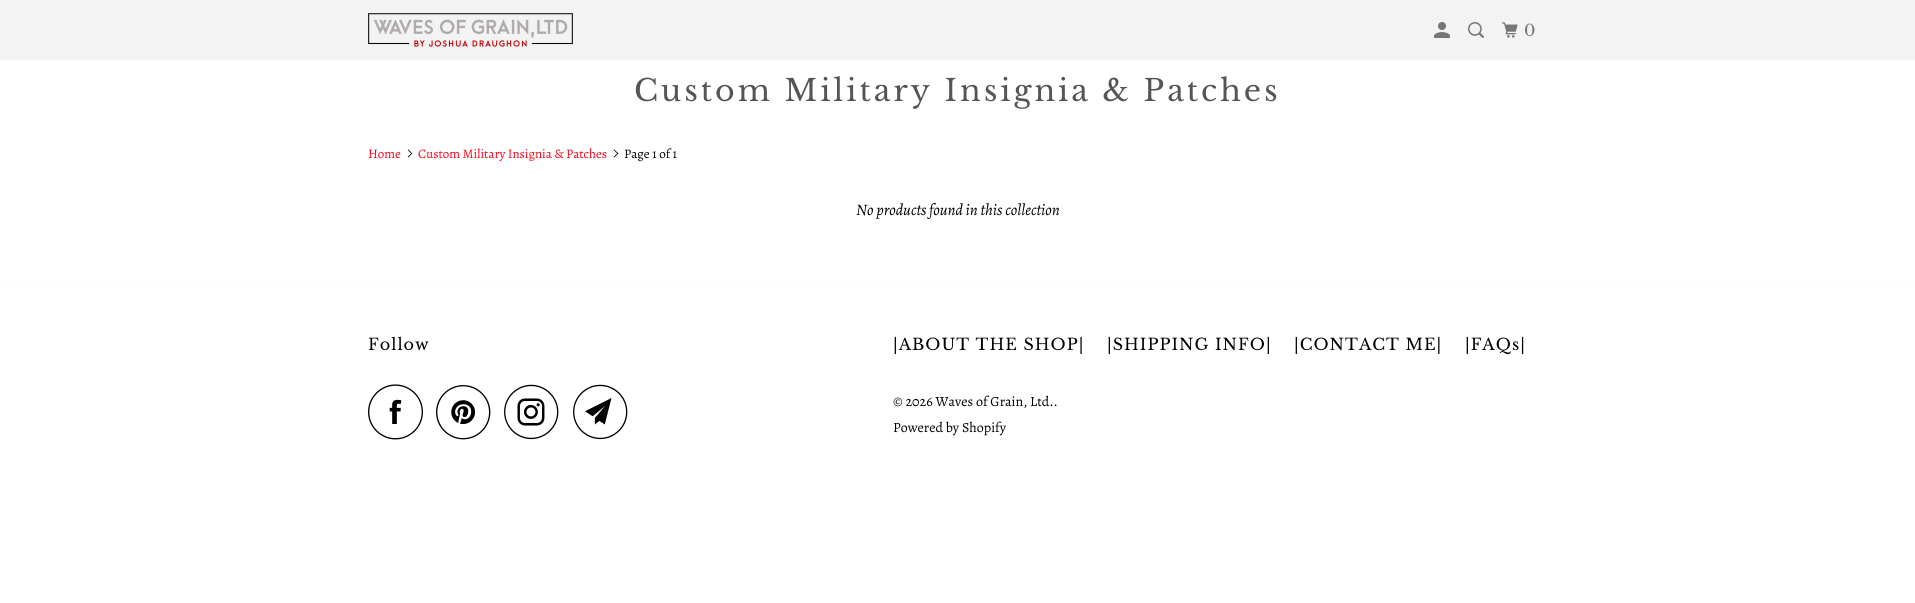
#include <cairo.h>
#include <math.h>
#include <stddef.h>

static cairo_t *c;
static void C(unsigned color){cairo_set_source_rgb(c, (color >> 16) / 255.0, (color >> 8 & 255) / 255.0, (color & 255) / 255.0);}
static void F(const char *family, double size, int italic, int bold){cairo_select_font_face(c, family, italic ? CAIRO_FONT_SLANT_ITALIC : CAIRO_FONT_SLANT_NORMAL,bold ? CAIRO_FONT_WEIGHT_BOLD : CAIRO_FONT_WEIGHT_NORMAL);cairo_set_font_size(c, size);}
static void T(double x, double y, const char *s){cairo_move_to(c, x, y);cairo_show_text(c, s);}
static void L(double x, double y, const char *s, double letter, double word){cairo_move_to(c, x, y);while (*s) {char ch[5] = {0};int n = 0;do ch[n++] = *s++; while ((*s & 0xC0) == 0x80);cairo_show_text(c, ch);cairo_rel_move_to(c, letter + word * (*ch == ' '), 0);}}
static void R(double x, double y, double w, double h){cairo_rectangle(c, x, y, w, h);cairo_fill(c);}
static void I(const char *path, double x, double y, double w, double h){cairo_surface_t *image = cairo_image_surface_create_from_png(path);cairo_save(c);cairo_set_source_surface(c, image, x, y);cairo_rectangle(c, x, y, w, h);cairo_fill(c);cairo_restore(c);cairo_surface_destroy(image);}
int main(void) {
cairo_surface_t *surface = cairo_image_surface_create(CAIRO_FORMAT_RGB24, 1915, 603);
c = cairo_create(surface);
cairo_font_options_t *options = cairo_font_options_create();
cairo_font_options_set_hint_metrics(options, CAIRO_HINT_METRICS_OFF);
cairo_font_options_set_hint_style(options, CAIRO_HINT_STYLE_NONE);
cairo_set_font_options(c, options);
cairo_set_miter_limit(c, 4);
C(0xffffff);
cairo_paint(c);
C(0xf3f3f3);
R(0,0,1915,60);
I("1.png",368,13,205,34);
I("2.png",1434,22,16,16);
I("3.png",1468,22,16,16);
I("4.png",1502,22,16,16);
F("Libre Baskerville",16,0,0);
C(0x767676);
L(1524,36,"0",1,0);
F("Libre Baskerville",30,0,0);
C(0x565454);
L(634,101,"Custom Military Insignia & Patches",3,0);
F("Alegreya",13,0,0);
C(0xfd0317);
T(368,158,"Home");
I("5.png",407,149,6,9);
T(418,158,"Custom Military Insignia & Patches");
I("5.png",613,149,6,9);
C(0x000000);
T(624,158,"Page 1 of 1");
F("Alegreya",16,1,0);
T(856,215,"No products found in this collection");
C(0xfdfafa);
R(0,286,1915,1);
F("Libre Baskerville",16,0,0);
C(0x000000);
L(368,350,"Follow",1,0);
I("6.png",368,384,55,56);
I("7.png",436,385,55,55);
I("8.png",504,384,55,56);
I("9.png",573,384,55,56);
L(893,350,"|ABOUT THE SHOP|",1,0);
L(1107,350,"|SHIPPING INFO|",1,0);
L(1294,350,"|CONTACT ME|",1,0);
L(1465,350,"|FAQs|",1,0);
F("Alegreya",14,0,0);
T(893,406,"© 2026 Waves of Grain, Ltd..");
T(893,432,"Powered by Shopify");
cairo_surface_write_to_png(surface, "o.png");
cairo_font_options_destroy(options);
cairo_destroy(c);
cairo_surface_destroy(surface);
return 0;
}
